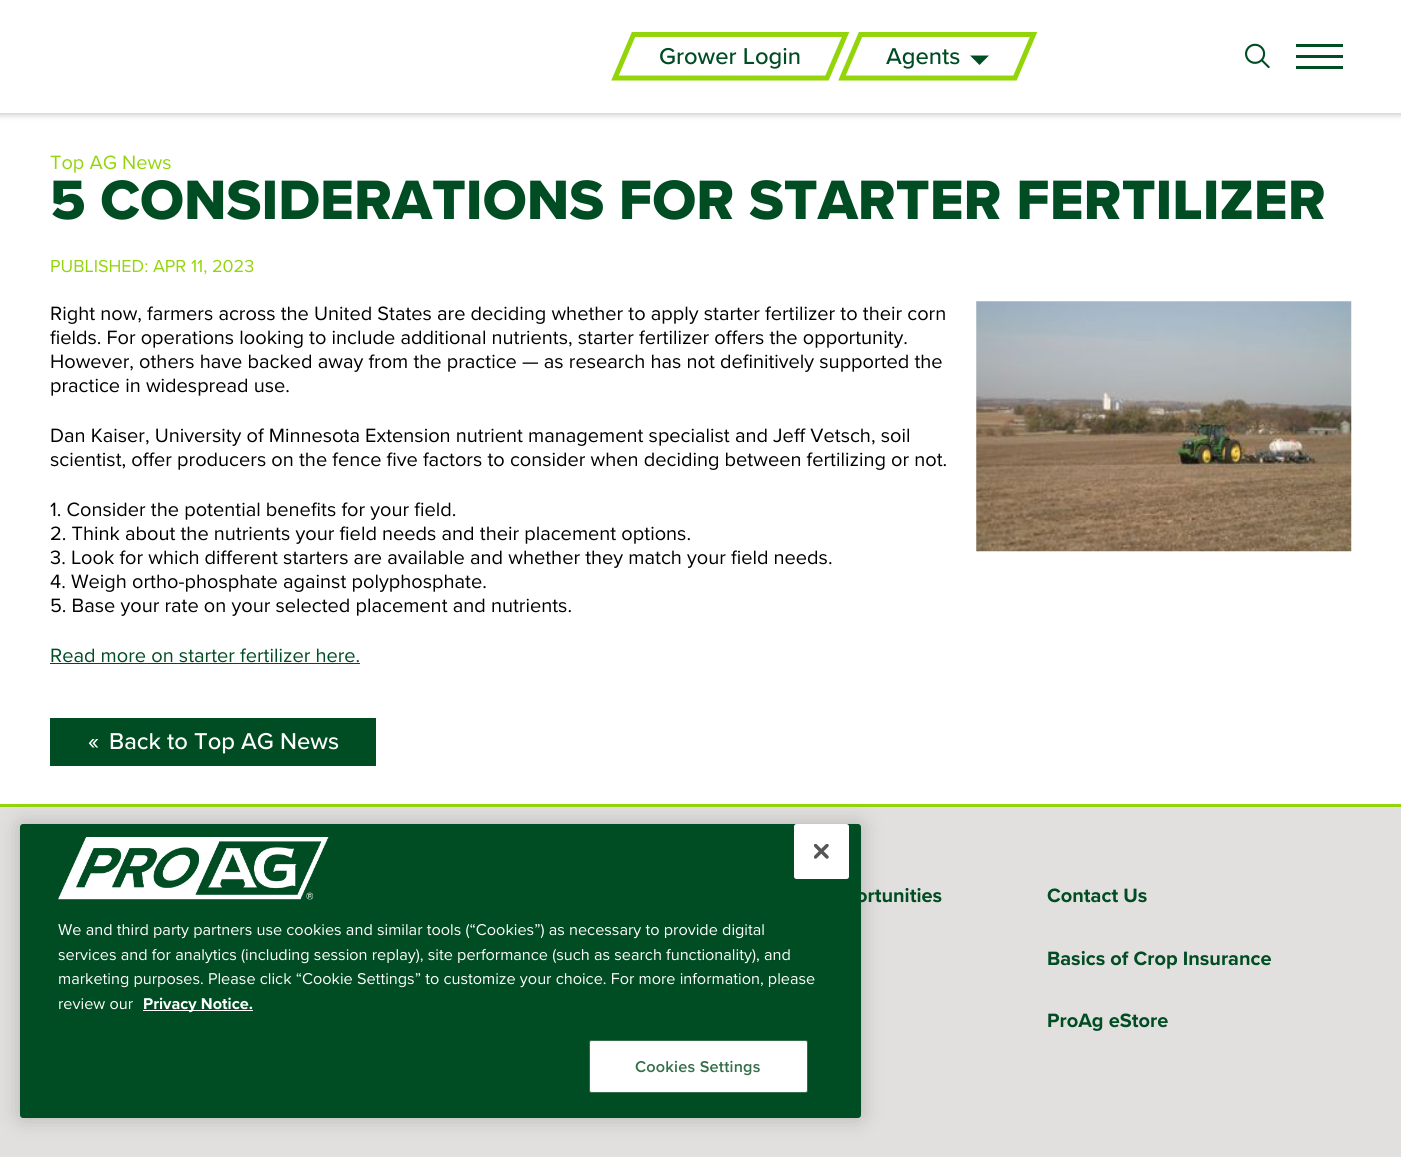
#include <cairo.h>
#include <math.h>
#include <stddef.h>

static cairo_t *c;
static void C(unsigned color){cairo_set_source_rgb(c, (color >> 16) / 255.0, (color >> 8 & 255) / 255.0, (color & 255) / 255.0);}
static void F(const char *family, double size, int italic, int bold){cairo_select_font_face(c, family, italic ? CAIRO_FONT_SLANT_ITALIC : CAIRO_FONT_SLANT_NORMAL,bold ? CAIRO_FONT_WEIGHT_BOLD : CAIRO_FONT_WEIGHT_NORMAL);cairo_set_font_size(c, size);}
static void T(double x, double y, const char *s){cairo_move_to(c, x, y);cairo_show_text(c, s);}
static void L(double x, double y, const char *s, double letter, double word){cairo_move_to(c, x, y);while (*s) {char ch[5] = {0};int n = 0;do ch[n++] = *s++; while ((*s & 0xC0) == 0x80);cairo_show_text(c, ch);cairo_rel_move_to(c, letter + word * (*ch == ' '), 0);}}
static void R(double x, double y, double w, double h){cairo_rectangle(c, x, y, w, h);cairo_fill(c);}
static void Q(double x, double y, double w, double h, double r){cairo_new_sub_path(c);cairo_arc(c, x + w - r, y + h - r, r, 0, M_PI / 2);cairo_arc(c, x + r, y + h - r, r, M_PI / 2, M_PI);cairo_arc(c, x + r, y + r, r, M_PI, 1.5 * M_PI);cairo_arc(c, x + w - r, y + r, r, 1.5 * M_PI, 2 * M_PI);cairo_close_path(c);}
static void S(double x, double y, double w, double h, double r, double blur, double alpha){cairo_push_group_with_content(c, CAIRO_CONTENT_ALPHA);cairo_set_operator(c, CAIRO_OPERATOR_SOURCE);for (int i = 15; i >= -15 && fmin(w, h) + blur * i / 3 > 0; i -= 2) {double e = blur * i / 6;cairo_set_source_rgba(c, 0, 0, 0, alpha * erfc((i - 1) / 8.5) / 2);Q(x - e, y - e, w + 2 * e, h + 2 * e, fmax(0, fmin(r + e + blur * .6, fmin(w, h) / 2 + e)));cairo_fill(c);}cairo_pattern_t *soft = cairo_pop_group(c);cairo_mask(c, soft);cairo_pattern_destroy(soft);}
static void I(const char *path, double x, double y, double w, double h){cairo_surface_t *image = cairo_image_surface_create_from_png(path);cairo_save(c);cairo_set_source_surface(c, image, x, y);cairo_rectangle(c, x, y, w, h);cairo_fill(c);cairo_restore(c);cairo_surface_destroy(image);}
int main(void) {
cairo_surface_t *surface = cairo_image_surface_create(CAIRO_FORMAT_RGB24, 1401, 1157);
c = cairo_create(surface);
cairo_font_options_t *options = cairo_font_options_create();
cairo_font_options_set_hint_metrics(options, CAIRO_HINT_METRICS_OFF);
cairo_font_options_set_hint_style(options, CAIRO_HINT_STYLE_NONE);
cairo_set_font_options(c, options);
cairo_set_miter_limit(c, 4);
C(0xffffff);
cairo_paint(c);
C(0x000000);
S(-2,-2,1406,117,0,3,.2);
C(0xffffff);
R(0,0,1401,113);
cairo_new_path(c);
cairo_move_to(c,633.5,34.5);
cairo_line_to(c,845.5,34.5);
cairo_line_to(c,827,78);
cairo_line_to(c,615,78);
cairo_close_path(c);
C(0x93d50a);
cairo_set_line_width(c,5);
cairo_stroke(c);
F("Proxima Nova Medium",23.75,0,0);
C(0x004c23);
T(659,64,"Grower Login");
cairo_new_path(c);
cairo_move_to(c,860.5,34.5);
cairo_line_to(c,1033.5,34.5);
cairo_line_to(c,1015,78);
cairo_line_to(c,842,78);
cairo_close_path(c);
C(0x93d50a);
cairo_stroke(c);
C(0x004c23);
T(886,64,"Agents");
cairo_new_path(c);
cairo_move_to(c,970,55.5);
cairo_line_to(c,989,55.5);
cairo_line_to(c,979.5,65);
cairo_close_path(c);
cairo_fill(c);
I("1.png",1245,43,25,26);
cairo_new_path(c);
cairo_move_to(c,1296,44);
cairo_line_to(c,1343,44);
cairo_line_to(c,1343,47);
cairo_line_to(c,1296,47);
cairo_close_path(c);
cairo_move_to(c,1296,55);
cairo_line_to(c,1343,55);
cairo_line_to(c,1343,58);
cairo_line_to(c,1296,58);
cairo_close_path(c);
cairo_move_to(c,1296,66);
cairo_line_to(c,1343,66);
cairo_line_to(c,1343,69);
cairo_line_to(c,1296,69);
cairo_close_path(c);
cairo_fill(c);
F("Proxima Nova",20,0,0);
C(0x93d50a);
T(50,169,"Top AG News");
F("Proxima Nova ExtraBold",57.5,0,0);
C(0x004c23);
T(50,219,"5 CONSIDERATIONS FOR STARTER FERTILIZER");
F("Proxima Nova",18,0,0);
C(0x93d50a);
T(50,272,"PUBLISHED: APR 11, 2023");
F("Proxima Nova",20,0,0);
C(0x000000);
T(50,320,"Right now, farmers across the United States are deciding whether to apply starter fertilizer to their corn");
I("2.png",976,301,376,251);
T(50,344,"fields. For operations looking to include additional nutrients, starter fertilizer offers the opportunity.");
T(50,368,"However, others have backed away from the practice — as research has not definitively supported the");
T(50,392,"practice in widespread use.");
T(50,442,"Dan Kaiser, University of Minnesota Extension nutrient management specialist and Jeff Vetsch, soil");
T(50,466,"scientist, offer producers on the fence five factors to consider when deciding between fertilizing or not.");
T(50,516,"1. Consider the potential benefits for your field.");
T(50,540,"2. Think about the nutrients your field needs and their placement options.");
T(50,564,"3. Look for which different starters are available and whether they match your field needs.");
T(50,588,"4. Weigh ortho-phosphate against polyphosphate.");
T(50,612,"5. Base your rate on your selected placement and nutrients.");
C(0x004c23);
T(50,662,"Read more on starter fertilizer here.");
R(50,663,310,1);
R(50,718,326,48);
F("Proxima Nova Medium",23.75,0,0);
C(0xffffff);
T(88,749,"«");
T(109,749,"Back to Top AG News");
C(0xe2e0de);
R(0,807,1401,350);
C(0x93d50a);
R(0,804,1401,3);
C(0x000000);
S(20,824,841,294,3,11,.2);
C(0x004c23);
Q(20,824,841,294,3);
cairo_fill(c);
C(0xffffff);
Q(794,824,55,55,2.5);
cairo_fill(c);
I("3.png",814,844,15,15);
F("Proxima Nova",16.25,0,0);
T(58,935,"We and third party partners use cookies and similar tools (“Cookies”) as necessary to provide digital");
T(58,960,"services and for analytics (including session replay), site performance (such as search functionality), and");
T(58,984,"marketing purposes. Please click “Cookie Settings” to customize your choice. For more information, please");
T(58,1009,"review our");
R(143,1010,110,1);
F("Proxima Nova",16.25,0,1);
T(143,1009,"Privacy Notice.");
I("4.png",58,837,271,63);
Q(589.5,1040.5,218,52,2);
cairo_fill_preserve(c);
C(0x346e4a);
cairo_set_line_width(c,1);
cairo_stroke(c);
F("Proxima Nova SemiBold",16.25,0,0);
L(635,1072,"Cookies Settings",.2,0);
F("Proxima Nova",20,0,1);
C(0x004c23);
T(856,902,"ortunities");
T(1047,902,"Contact Us");
T(1047,965,"Basics of Crop Insurance");
T(1047,1027,"ProAg eStore");
cairo_surface_write_to_png(surface, "o.png");
cairo_font_options_destroy(options);
cairo_destroy(c);
cairo_surface_destroy(surface);
return 0;
}
